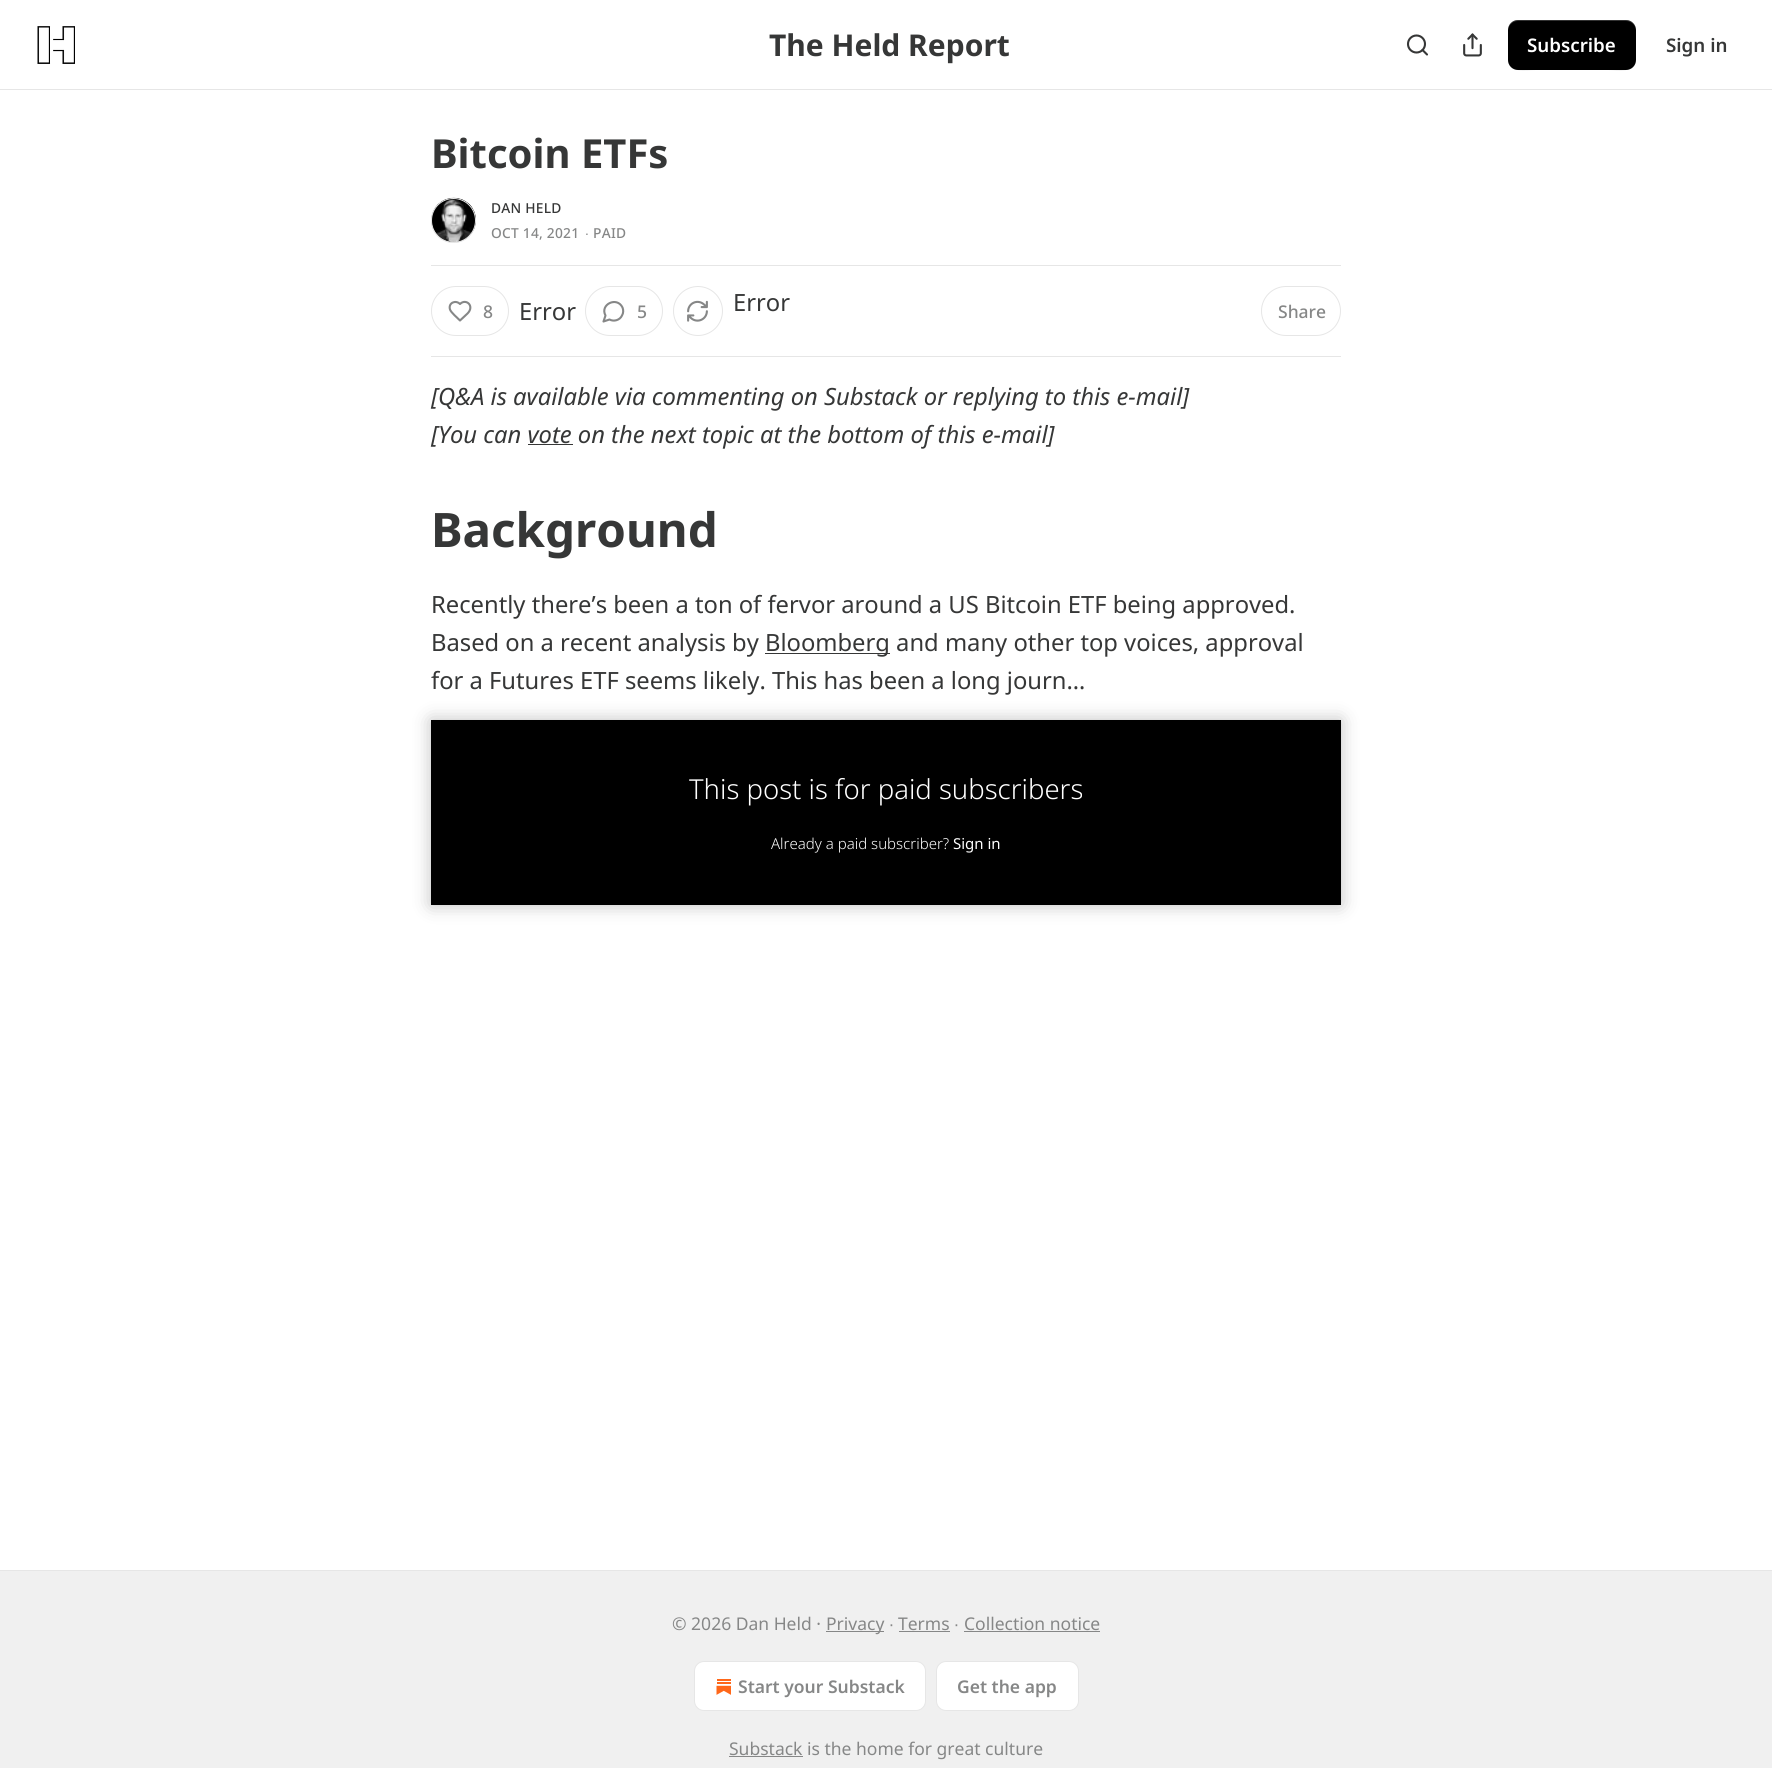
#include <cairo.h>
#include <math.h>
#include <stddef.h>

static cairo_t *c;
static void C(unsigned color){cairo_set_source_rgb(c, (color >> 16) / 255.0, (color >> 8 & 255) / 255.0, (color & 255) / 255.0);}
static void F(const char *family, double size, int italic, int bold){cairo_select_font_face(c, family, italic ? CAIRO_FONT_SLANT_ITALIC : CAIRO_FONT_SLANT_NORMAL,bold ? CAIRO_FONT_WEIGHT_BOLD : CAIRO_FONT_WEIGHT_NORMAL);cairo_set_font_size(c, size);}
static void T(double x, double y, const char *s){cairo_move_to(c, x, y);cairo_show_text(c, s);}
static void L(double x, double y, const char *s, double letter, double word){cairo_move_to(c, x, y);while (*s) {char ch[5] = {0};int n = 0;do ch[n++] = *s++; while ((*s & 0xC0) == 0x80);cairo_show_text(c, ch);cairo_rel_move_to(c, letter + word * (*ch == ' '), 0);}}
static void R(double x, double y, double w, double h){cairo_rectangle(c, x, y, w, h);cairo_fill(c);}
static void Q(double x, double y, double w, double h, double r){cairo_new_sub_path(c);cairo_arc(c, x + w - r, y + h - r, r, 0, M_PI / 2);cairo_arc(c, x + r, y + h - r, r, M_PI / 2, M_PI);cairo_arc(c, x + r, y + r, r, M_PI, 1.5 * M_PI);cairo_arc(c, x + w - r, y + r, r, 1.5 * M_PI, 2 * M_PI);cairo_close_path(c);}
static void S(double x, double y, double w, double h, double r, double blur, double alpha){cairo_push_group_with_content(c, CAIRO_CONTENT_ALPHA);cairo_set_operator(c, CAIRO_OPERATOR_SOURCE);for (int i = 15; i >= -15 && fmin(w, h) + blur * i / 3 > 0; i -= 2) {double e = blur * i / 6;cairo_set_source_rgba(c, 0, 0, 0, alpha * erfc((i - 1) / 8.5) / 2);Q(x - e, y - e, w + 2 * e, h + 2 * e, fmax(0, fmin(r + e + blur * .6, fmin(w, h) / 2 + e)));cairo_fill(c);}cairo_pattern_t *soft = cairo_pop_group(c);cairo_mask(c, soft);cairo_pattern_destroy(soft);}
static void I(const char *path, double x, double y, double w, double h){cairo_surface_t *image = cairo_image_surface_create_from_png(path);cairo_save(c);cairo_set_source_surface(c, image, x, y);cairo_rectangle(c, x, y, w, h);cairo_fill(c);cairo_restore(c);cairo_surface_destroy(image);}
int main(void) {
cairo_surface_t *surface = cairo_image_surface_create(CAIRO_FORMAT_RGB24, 1772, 1768);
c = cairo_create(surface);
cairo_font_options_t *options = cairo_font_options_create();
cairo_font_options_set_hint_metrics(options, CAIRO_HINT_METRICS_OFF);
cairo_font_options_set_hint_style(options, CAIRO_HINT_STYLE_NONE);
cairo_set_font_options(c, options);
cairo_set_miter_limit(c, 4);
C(0xffffff);
cairo_paint(c);
C(0xe6e6e6);
R(0,89,1772,1);
I("1.png",37,26,38,38);
F("Noto Sans",30,0,1);
C(0x363737);
T(769,56,"The Held Report");
cairo_new_path(c);
cairo_arc(c,1416.5,44,8.5,0,2 * M_PI);
cairo_set_line_width(c,2.1);
cairo_stroke(c);
cairo_new_path(c);
cairo_move_to(c,1427,54.5);
cairo_line_to(c,1422.5,50);
cairo_set_line_cap(c,CAIRO_LINE_CAP_ROUND);
cairo_set_line_join(c,CAIRO_LINE_JOIN_ROUND);
cairo_stroke(c);
I("2.png",1463,33,19,24);
C(0x000000);
Q(1508,20,128,50,10);
cairo_fill(c);
cairo_set_source_rgba(c,0,0,0,0.1);
cairo_new_path(c);
cairo_move_to(c,1508,59);
cairo_curve_to(c,1508,74,1526,70,1536,70);
cairo_line_to(c,1608,70);
cairo_curve_to(c,1618,70,1636,74,1636,59);
cairo_curve_to(c,1636,64,1632,69,1626,69);
cairo_line_to(c,1518,69);
cairo_curve_to(c,1512,69,1508,64,1508,59);
cairo_close_path(c);
cairo_fill(c);
cairo_set_source_rgba(c,1,1,1,0.2);
cairo_new_path(c);
cairo_move_to(c,1518,21);
cairo_line_to(c,1626,21);
cairo_curve_to(c,1632,21,1636,26,1636,31);
cairo_curve_to(c,1636,16,1618,20,1608,20);
cairo_line_to(c,1536,20);
cairo_curve_to(c,1526,20,1508,16,1508,31);
cairo_curve_to(c,1508,26,1512,21,1518,21);
cairo_close_path(c);
cairo_fill(c);
F("Noto Sans SemiBold",18.75,0,0);
C(0xffffff);
T(1527,52,"Subscribe");
C(0x363737);
T(1666,52,"Sign in");
F("Noto Sans",40,0,1);
T(431,168,"Bitcoin ETFs");
cairo_new_path(c);
cairo_arc(c,453.5,220.5,22,0,2 * M_PI);
C(0xe6e6e6);
cairo_set_line_width(c,1);
cairo_set_line_cap(c,CAIRO_LINE_CAP_BUTT);
cairo_set_line_join(c,CAIRO_LINE_JOIN_MITER);
cairo_stroke(c);
I("3.png",431,197,45,46);
cairo_arc(c,453.5,220.5,22,0,2 * M_PI);
cairo_stroke(c);
F("Noto Sans Medium",13.75,0,0);
C(0x363737);
L(491,213,"DAN HELD",.25,0);
C(0x868787);
L(491,238,"OCT 14, 2021",.25,0);
F("Liberation Sans",13.75,0,0);
L(585,238,"∙",.25,0);
F("Noto Sans Medium",13.75,0,0);
L(593,238,"PAID",.25,0);
C(0xe6e6e6);
R(431,265,910,1);
R(431,356,910,1);
Q(431.5,286.5,77,49,24.5);
cairo_stroke(c);
cairo_new_path(c);
cairo_move_to(c,467.5,313.5);
cairo_curve_to(c,475,306,466,298,460,304);
cairo_curve_to(c,455.5,299.5,448,303,450,309.5);
cairo_curve_to(c,451,312.5,457.5,318,460,320.5);
cairo_close_path(c);
C(0x868787);
cairo_set_line_width(c,2.1);
cairo_set_line_cap(c,CAIRO_LINE_CAP_ROUND);
cairo_set_line_join(c,CAIRO_LINE_JOIN_ROUND);
cairo_stroke(c);
F("Noto Sans Medium",17.5,0,0);
T(483,318,"8");
F("Noto Sans",23.75,0,0);
C(0x363737);
T(519,320,"Error");
Q(585.5,286.5,77,49,24.5);
C(0xe6e6e6);
cairo_set_line_width(c,1);
cairo_set_line_cap(c,CAIRO_LINE_CAP_BUTT);
cairo_set_line_join(c,CAIRO_LINE_JOIN_MITER);
cairo_stroke(c);
cairo_new_path(c);
cairo_move_to(c,609.5,319.5);
cairo_curve_to(c,614,322,620,320,622,315.5);
cairo_curve_to(c,623.5,313,623.5,310,622.5,307.5);
cairo_curve_to(c,617,296,599.5,304.5,605.5,315.5);
cairo_line_to(c,603.5,321.5);
cairo_close_path(c);
C(0x868787);
cairo_set_line_width(c,2.1);
cairo_set_line_cap(c,CAIRO_LINE_CAP_ROUND);
cairo_set_line_join(c,CAIRO_LINE_JOIN_ROUND);
cairo_stroke(c);
F("Noto Sans Medium",17.5,0,0);
T(637,318,"5");
cairo_new_path(c);
cairo_arc(c,698,311,24.5,0,2 * M_PI);
C(0xe6e6e6);
cairo_set_line_width(c,1);
cairo_set_line_cap(c,CAIRO_LINE_CAP_BUTT);
cairo_set_line_join(c,CAIRO_LINE_JOIN_MITER);
cairo_stroke(c);
I("4.png",687,300,21,22);
F("Noto Sans",23.75,0,0);
C(0x363737);
T(733,311,"Error");
Q(1261.5,286.5,79,49,24.5);
C(0xe6e6e6);
cairo_stroke(c);
F("Noto Sans Medium",17.5,0,0);
C(0x868787);
T(1278,318,"Share");
F("Noto Sans",23.75,1,0);
C(0x363737);
T(431,405,"[Q&A is available via commenting on Substack or replying to this e-mail]");
T(431,443,"[You can vote on the next topic at the bottom of this e-mail]");
R(528,444,45,1);
F("Noto Sans",47.5,0,1);
T(431,547,"Background");
F("Noto Sans",23.75,0,0);
T(431,613,"Recently there’s been a ton of fervor around a US Bitcoin ETF being approved.");
T(431,651,"Based on a recent analysis by");
R(765,653,125,1);
T(765,651,"Bloomberg and many other top voices, approval");
T(431,689,"for a Futures ETF seems likely. This has been a long journ…");
C(0x000000);
R(431,720,910,185);
cairo_save(c);
cairo_set_fill_rule(c,CAIRO_FILL_RULE_EVEN_ODD);
cairo_new_path(c);
cairo_move_to(c,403,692);
cairo_line_to(c,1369,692);
cairo_line_to(c,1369,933);
cairo_line_to(c,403,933);
cairo_close_path(c);
cairo_move_to(c,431,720);
cairo_line_to(c,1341,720);
cairo_line_to(c,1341,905);
cairo_line_to(c,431,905);
cairo_close_path(c);
cairo_clip(c);
C(0x000000);
S(431,720,910,185,0,9,.25);
cairo_restore(c);
F("Noto Sans Light",27.5,0,0);
C(0xffffff);
T(689,799,"This post is for paid subscribers");
F("Noto Sans Light",15,0,0);
T(771,849,"Already a paid subscriber?");
F("Noto Sans",15,0,0);
T(953,849,"Sign in");
C(0xf0f0f0);
R(0,1571,1772,197);
C(0xe6e6e6);
R(0,1570,1772,1);
F("Noto Sans",17.5,0,0);
C(0x868787);
T(672,1630,"© 2026 Dan Held ·");
R(826,1631,58,1);
T(826,1630,"Privacy");
F("Liberation Sans",17.5,0,0);
T(889,1630,"∙");
F("Noto Sans",17.5,0,0);
T(898,1630,"Terms");
R(899,1631,51,1);
F("Liberation Sans",17.5,0,0);
T(954,1630,"∙");
F("Noto Sans",17.5,0,0);
T(964,1630,"Collection notice");
R(964,1631,136,1);
C(0xffffff);
Q(694.5,1661.5,231,49,9.5);
cairo_fill_preserve(c);
C(0xe6e6e6);
cairo_stroke(c);
I("5.png",716,1679,15,16);
F("Noto Sans SemiBold",17.5,0,0);
C(0x868787);
T(738,1693,"Start your Substack");
C(0xffffff);
Q(936.5,1661.5,142,49,9.5);
cairo_fill_preserve(c);
C(0xe6e6e6);
cairo_stroke(c);
C(0x868787);
T(957,1693,"Get the app");
R(729,1756,74,1);
F("Noto Sans",17.5,0,0);
T(729,1755,"Substack is the home for great culture");
cairo_surface_write_to_png(surface, "o.png");
cairo_font_options_destroy(options);
cairo_destroy(c);
cairo_surface_destroy(surface);
return 0;
}
